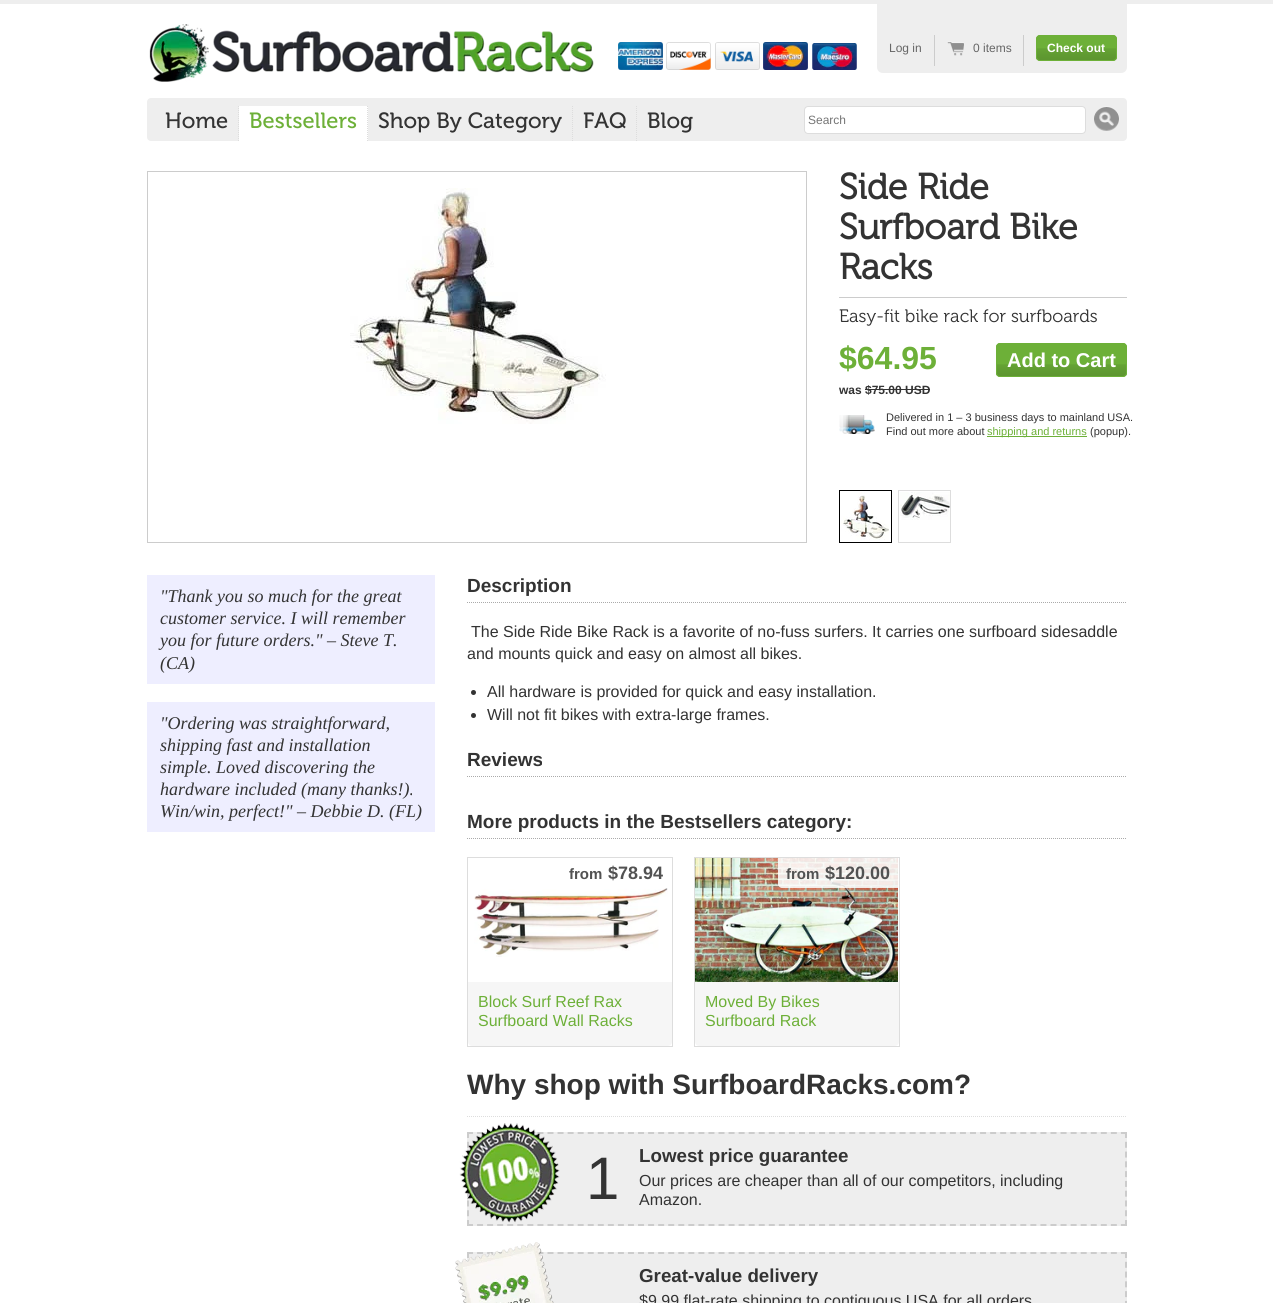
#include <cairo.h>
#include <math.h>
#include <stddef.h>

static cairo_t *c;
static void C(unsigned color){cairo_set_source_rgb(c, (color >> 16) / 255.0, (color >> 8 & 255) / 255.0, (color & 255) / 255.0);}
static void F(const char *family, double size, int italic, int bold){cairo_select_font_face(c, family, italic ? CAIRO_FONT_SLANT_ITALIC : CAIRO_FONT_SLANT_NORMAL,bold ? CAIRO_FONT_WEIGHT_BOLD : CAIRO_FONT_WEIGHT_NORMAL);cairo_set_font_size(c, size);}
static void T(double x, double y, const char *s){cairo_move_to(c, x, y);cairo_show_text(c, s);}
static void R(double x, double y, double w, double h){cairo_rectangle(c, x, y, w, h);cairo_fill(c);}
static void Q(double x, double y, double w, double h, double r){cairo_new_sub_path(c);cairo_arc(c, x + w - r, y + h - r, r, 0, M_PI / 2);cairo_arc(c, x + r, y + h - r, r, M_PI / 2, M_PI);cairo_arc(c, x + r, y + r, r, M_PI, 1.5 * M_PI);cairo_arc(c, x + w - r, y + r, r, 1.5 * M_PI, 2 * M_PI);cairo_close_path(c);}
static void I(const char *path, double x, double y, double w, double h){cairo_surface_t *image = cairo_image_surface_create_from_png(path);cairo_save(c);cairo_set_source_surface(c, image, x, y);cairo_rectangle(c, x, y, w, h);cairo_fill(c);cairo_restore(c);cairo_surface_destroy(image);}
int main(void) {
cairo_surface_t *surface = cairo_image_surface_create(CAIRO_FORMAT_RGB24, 1273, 1303);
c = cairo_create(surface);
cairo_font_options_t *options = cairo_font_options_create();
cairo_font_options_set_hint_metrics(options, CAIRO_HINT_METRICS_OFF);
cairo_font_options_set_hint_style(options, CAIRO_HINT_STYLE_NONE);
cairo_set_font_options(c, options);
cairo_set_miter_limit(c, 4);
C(0xffffff);
cairo_paint(c);
C(0xeeeeee);
R(0,0,1273,4);
I("1.png",149,24,445,58);
I("2.png",618,42,45,28);
I("3.png",666,42,45,28);
I("4.png",715,42,45,28);
I("5.png",763,42,45,28);
I("6.png",812,43,45,27);
cairo_new_path(c);
cairo_move_to(c,877,4);
cairo_line_to(c,1127,4);
cairo_line_to(c,1127,67);
cairo_curve_to(c,1127,70.5,1124.5,73,1121,73);
cairo_line_to(c,883,73);
cairo_curve_to(c,879.5,73,877,70.5,877,67);
cairo_close_path(c);
cairo_fill(c);
C(0xcccccc);
R(934,35,1,31);
F("Liberation Sans",12,0,0);
C(0x666666);
T(889,52,"Log in");
C(0xcccccc);
R(1023,35,1,31);
I("7.png",947,41,17,15);
C(0x666666);
T(973,52,"0 items");
C(0x6db038);
Q(1036,35,81,26,4);
cairo_fill(c);
I("8.png",1036,48,81,12);
Q(1036.5,35.5,80,25,3.5);
cairo_set_line_width(c,1);
cairo_stroke(c);
F("Liberation Sans",12,0,1);
C(0xffffff);
T(1047,52,"Check out");
C(0xeeeeee);
Q(147,98,980,43,4);
cairo_fill(c);
cairo_new_path(c);
cairo_move_to(c,238.5,106);
cairo_line_to(c,238.5,141);
C(0xdddddd);
cairo_set_dash(c,(double[]){1,1},2,0);
cairo_stroke(c);
F("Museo",22,0,0);
C(0x333333);
T(165,128,"Home");
C(0xffffff);
R(239,106,129,35);
cairo_new_path(c);
cairo_move_to(c,367.5,106);
cairo_line_to(c,367.5,141);
C(0xdddddd);
cairo_stroke(c);
C(0x6db038);
T(249,128,"Bestsellers");
cairo_new_path(c);
cairo_move_to(c,572.5,106);
cairo_line_to(c,572.5,141);
C(0xdddddd);
cairo_stroke(c);
C(0x333333);
T(378,128,"Shop By Category");
cairo_new_path(c);
cairo_move_to(c,636.5,106);
cairo_line_to(c,636.5,141);
C(0xdddddd);
cairo_stroke(c);
C(0x333333);
T(583,128,"FAQ");
T(647,128,"Blog");
C(0xffffff);
Q(804.5,106.5,281,27,3.5);
cairo_fill_preserve(c);
C(0xdddddd);
cairo_set_dash(c,NULL,0,0);
cairo_stroke(c);
F("Liberation Sans",12,0,0);
C(0x757575);
T(808,124,"Search");
I("9.png",1094,106,25,25);
cairo_rectangle(c,147.5,171.5,659,371);
C(0xcccccc);
cairo_stroke(c);
I("10.png",350,188,256,236);
F("Museo",36,0,1);
C(0x333333);
T(839,199,"Side Ride");
T(839,239,"Surfboard Bike");
T(839,279,"Racks");
C(0xcccccc);
R(839,297,288,1);
F("Museo Light",18,0,0);
C(0x333333);
T(839,322,"Easy-fit bike rack for surfboards");
F("Liberation Sans",32,0,1);
C(0x6db038);
T(839,369,"$64.95");
cairo_save(c);
cairo_rectangle(c,839,338,288,72);
cairo_clip(c);
F("Liberation Sans",12,0,1);
C(0x333333);
T(839,394,"was");
cairo_restore(c);
F("Liberation Sans",12,0,1);
C(0x333333);
T(865,394,"$75.00 USD");
R(865,389,65,1);
C(0x6db038);
Q(996,343,131,34,4);
cairo_fill(c);
I("11.png",996,364,131,12);
Q(996.5,343.5,130,33,3.5);
cairo_stroke(c);
F("Liberation Sans",20,0,1);
C(0xffffff);
T(1007,367,"Add to Cart");
I("12.png",839,415,36,19);
F("Liberation Sans",11,0,0);
C(0x333333);
T(886,421,"Delivered in 1 – 3 business days to mainland USA.");
T(886,435,"Find out more about");
C(0x6db038);
R(987,436,100,1);
T(987,435,"shipping and returns");
C(0x333333);
T(1090,435,"(popup).");
cairo_rectangle(c,839.5,490.5,52,52);
C(0x000000);
cairo_stroke(c);
I("13.png",841,492,48,48);
cairo_rectangle(c,898.5,490.5,52,52);
C(0xdddddd);
cairo_stroke(c);
I("14.png",900,492,50,28);
C(0xeeeeff);
R(147,575,288,109);
F("Liberation Serif",18,1,0);
C(0x333333);
T(160,602,"\"Thank you so much for the great");
T(160,624,"customer service. I will remember");
T(160,646,"you for future orders.\" – Steve T.");
T(160,669,"(CA)");
C(0xeeeeff);
R(147,702,288,130);
C(0x333333);
T(160,729,"\"Ordering was straightforward,");
T(160,751,"shipping fast and installation");
T(160,773,"simple. Loved discovering the");
T(160,795,"hardware included (many thanks!).");
T(160,817,"Win/win, perfect!\" – Debbie D. (FL)");
cairo_new_path(c);
cairo_move_to(c,467,602.5);
cairo_line_to(c,1127,602.5);
C(0xaaaaaa);
cairo_set_dash(c,(double[]){1,1},2,0);
cairo_stroke(c);
F("Liberation Sans",19,0,1);
C(0x333333);
T(467,592,"Description");
F("Liberation Sans",16,0,0);
T(471,637,"The Side Ride Bike Rack is a favorite of no-fuss surfers. It carries one surfboard sidesaddle");
T(467,659,"and mounts quick and easy on almost all bikes.");
cairo_new_path(c);
cairo_arc(c,473.5,692.5,2.5,0,2 * M_PI);
cairo_fill(c);
T(487,697,"All hardware is provided for quick and easy installation.");
cairo_new_path(c);
cairo_arc(c,473.5,715.5,2.5,0,2 * M_PI);
cairo_fill(c);
T(487,720,"Will not fit bikes with extra-large frames.");
cairo_new_path(c);
cairo_move_to(c,467,776.5);
cairo_line_to(c,1127,776.5);
C(0xaaaaaa);
cairo_stroke(c);
F("Liberation Sans",19,0,1);
C(0x333333);
T(467,766,"Reviews");
cairo_new_path(c);
cairo_move_to(c,467,838.5);
cairo_line_to(c,1127,838.5);
C(0xaaaaaa);
cairo_stroke(c);
C(0x333333);
T(467,828,"More products in the Bestsellers category:");
cairo_rectangle(c,467.5,857.5,205,189);
C(0xdddddd);
cairo_set_dash(c,NULL,0,0);
cairo_stroke(c);
F("Liberation Sans",15,0,1);
C(0x525252);
T(569,879,"from");
F("Liberation Sans",18,0,1);
T(608,879,"$78.94");
I("15.png",474,888,194,69);
C(0xf6f6f6);
cairo_new_path(c);
cairo_move_to(c,468,982);
cairo_line_to(c,672,982);
cairo_line_to(c,672,1042);
cairo_curve_to(c,672,1044,670,1046,668,1046);
cairo_line_to(c,472,1046);
cairo_curve_to(c,470,1046,468,1044,468,1042);
cairo_close_path(c);
cairo_fill(c);
F("Liberation Sans",16,0,0);
C(0x6db038);
T(478,1007,"Block Surf Reef Rax");
T(478,1026,"Surfboard Wall Racks");
cairo_rectangle(c,694.5,857.5,205,189);
C(0xdddddd);
cairo_stroke(c);
I("16.png",695,858,203,124);
cairo_set_source_rgba(c,1,1,1,0.85);
cairo_new_path(c);
cairo_move_to(c,778,858);
cairo_line_to(c,899,858);
cairo_line_to(c,899,888);
cairo_line_to(c,782,888);
cairo_curve_to(c,780,888,778,886,778,884);
cairo_close_path(c);
cairo_fill(c);
F("Liberation Sans",15,0,1);
C(0x525252);
T(786,879,"from");
F("Liberation Sans",18,0,1);
T(825,879,"$120.00");
C(0xf6f6f6);
cairo_new_path(c);
cairo_move_to(c,695,982);
cairo_line_to(c,899,982);
cairo_line_to(c,899,1042);
cairo_curve_to(c,899,1044,897,1046,895,1046);
cairo_line_to(c,699,1046);
cairo_curve_to(c,697,1046,695,1044,695,1042);
cairo_close_path(c);
cairo_fill(c);
F("Liberation Sans",16,0,0);
C(0x6db038);
T(705,1007,"Moved By Bikes");
T(705,1026,"Surfboard Rack");
cairo_new_path(c);
cairo_move_to(c,467,1116.5);
cairo_line_to(c,1127,1116.5);
C(0xdddddd);
cairo_set_dash(c,(double[]){1,1},2,0);
cairo_stroke(c);
F("Liberation Sans",28,0,1);
C(0x333333);
T(467,1094,"Why shop with SurfboardRacks.com?");
C(0xeeeeee);
R(467,1132,660,94);
cairo_new_path(c);
cairo_move_to(c,467,1133);
cairo_line_to(c,1127,1133);
C(0xcccccc);
cairo_set_line_width(c,2);
cairo_set_dash(c,(double[]){6,4.06},2,0);
cairo_stroke(c);
cairo_new_path(c);
cairo_move_to(c,1126,1132);
cairo_line_to(c,1126,1226);
cairo_set_dash(c,(double[]){6,3.78},2,0);
cairo_stroke(c);
cairo_new_path(c);
cairo_move_to(c,467,1225);
cairo_line_to(c,1127,1225);
cairo_set_dash(c,(double[]){6,4.06},2,0);
cairo_stroke(c);
cairo_new_path(c);
cairo_move_to(c,468,1132);
cairo_line_to(c,468,1226);
cairo_set_dash(c,(double[]){6,3.78},2,0);
cairo_stroke(c);
I("17.png",459,1123,101,100);
F("Liberation Sans",60,0,0);
C(0x333333);
T(586,1199,"1");
F("Liberation Sans",18.75,0,1);
T(639,1162,"Lowest price guarantee");
F("Liberation Sans",16,0,0);
T(639,1186,"Our prices are cheaper than all of our competitors, including");
T(639,1205,"Amazon.");
C(0xeeeeee);
R(467,1252,660,51);
cairo_new_path(c);
cairo_move_to(c,467,1253);
cairo_line_to(c,1127,1253);
C(0xcccccc);
cairo_set_dash(c,(double[]){6,4.06},2,0);
cairo_stroke(c);
cairo_new_path(c);
cairo_move_to(c,1126,1252);
cairo_line_to(c,1126,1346);
cairo_set_dash(c,(double[]){6,3.78},2,0);
cairo_stroke(c);
cairo_new_path(c);
cairo_move_to(c,468,1252);
cairo_line_to(c,468,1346);
cairo_stroke(c);
I("18.png",455,1242,99,61);
F("Liberation Sans",18.75,0,1);
C(0x333333);
T(639,1282,"Great-value delivery");
F("Liberation Sans",16,0,0);
T(639,1306,"$9.99 flat-rate shipping to contiguous USA for all orders");
cairo_surface_write_to_png(surface, "o.png");
cairo_font_options_destroy(options);
cairo_destroy(c);
cairo_surface_destroy(surface);
return 0;
}
